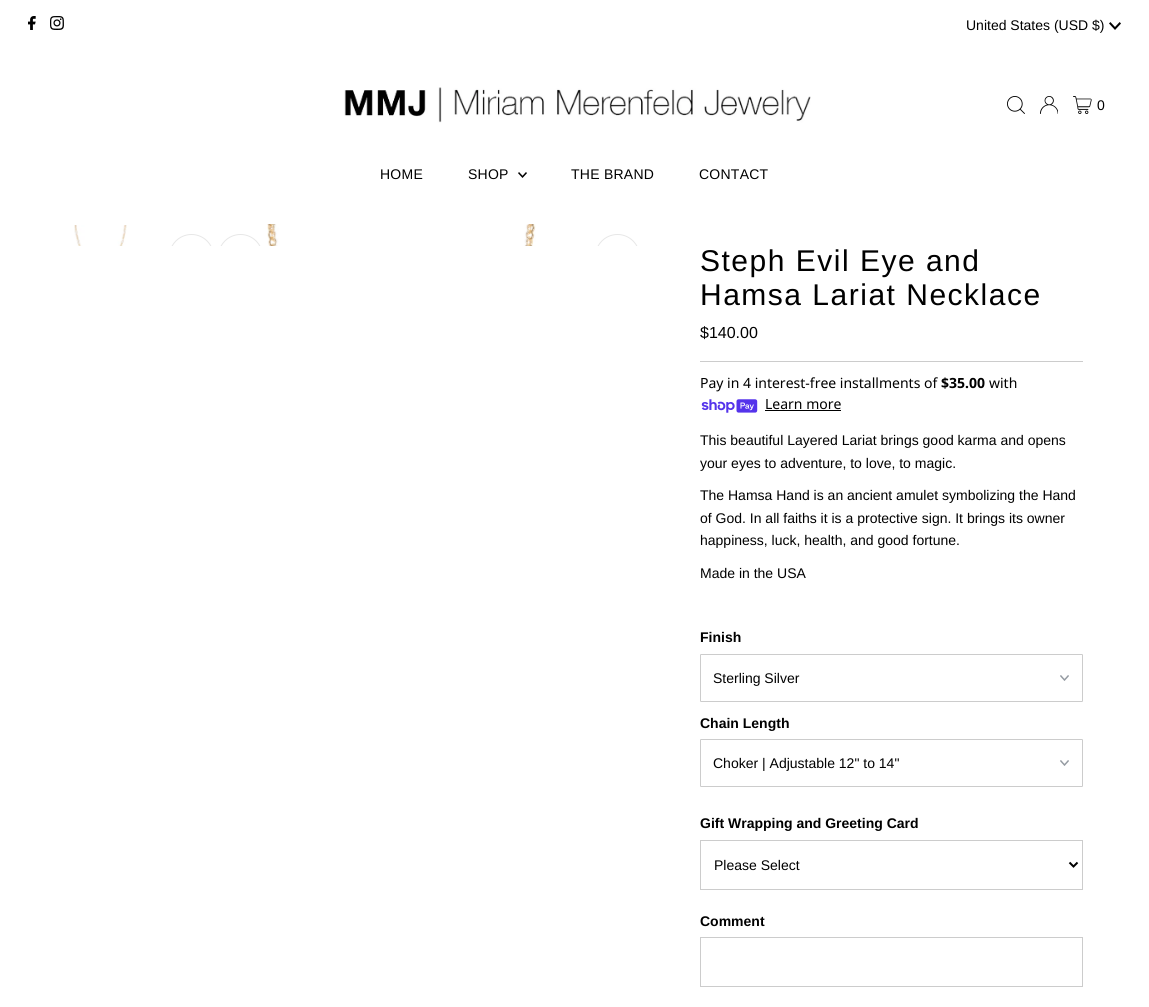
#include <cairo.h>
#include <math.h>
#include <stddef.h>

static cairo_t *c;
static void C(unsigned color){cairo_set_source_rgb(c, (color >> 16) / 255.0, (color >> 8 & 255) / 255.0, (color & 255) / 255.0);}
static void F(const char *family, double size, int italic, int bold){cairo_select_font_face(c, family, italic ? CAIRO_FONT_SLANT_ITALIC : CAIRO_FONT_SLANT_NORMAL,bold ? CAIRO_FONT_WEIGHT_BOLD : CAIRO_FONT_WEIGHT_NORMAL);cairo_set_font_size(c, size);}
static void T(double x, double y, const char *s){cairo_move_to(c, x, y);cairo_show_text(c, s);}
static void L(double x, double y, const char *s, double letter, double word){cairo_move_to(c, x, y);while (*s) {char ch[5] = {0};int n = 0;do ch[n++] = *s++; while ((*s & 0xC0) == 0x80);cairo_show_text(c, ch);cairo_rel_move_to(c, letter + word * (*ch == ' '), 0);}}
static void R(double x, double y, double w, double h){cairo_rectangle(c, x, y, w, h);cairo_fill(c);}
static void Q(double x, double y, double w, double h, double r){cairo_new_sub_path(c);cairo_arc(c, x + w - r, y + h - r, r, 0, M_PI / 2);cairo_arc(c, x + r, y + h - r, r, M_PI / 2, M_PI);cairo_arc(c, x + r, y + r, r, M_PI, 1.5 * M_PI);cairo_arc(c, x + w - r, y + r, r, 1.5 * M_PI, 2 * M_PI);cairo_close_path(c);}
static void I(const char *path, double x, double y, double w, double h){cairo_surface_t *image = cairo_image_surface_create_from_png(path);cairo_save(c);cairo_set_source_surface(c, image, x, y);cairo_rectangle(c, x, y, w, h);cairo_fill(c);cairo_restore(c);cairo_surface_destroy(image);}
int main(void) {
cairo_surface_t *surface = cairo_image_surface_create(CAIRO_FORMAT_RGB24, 1149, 1007);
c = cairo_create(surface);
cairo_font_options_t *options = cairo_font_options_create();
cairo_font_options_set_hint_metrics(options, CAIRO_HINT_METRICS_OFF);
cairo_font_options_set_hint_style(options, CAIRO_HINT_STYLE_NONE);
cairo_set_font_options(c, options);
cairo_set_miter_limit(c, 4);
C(0xffffff);
cairo_paint(c);
I("1.png",28,16,8,14);
I("2.png",50,16,14,14);
F("Liberation Sans",14,0,0);
C(0x000000);
T(966,30,"United States (USD $)");
I("3.png",1109,22,12,8);
I("4.png",344,87,467,36);
I("5.png",1007,96,18,18);
I("6.png",1040,96,18,18);
I("7.png",1073,96,19,18);
T(1097,110,"0");
L(380,179,"HOME",.25,0);
L(468,179,"SHOP",.25,0);
I("8.png",518,172,9,6);
L(571,179,"THE BRAND",.25,0);
L(699,179,"CONTACT",.25,0);
I("9.png",74,225,53,21);
cairo_save(c);
cairo_rectangle(c,159,224,491,22);
cairo_clip(c);
cairo_arc(c,191.5,256.5,22,0,2 * M_PI);
C(0xe7e7e7);
cairo_set_line_width(c,1);
cairo_stroke(c);
cairo_arc(c,240.5,256.5,22,0,2 * M_PI);
cairo_stroke(c);
cairo_restore(c);
I("10.png",267,224,269,22);
cairo_save(c);
cairo_rectangle(c,159,224,491,22);
cairo_clip(c);
cairo_arc(c,617.5,256.5,22,0,2 * M_PI);
C(0xe7e7e7);
cairo_set_line_width(c,1);
cairo_stroke(c);
cairo_restore(c);
F("Liberation Sans",30,0,0);
L(700,271,"Steph Evil Eye and",1.5,0);
L(700,305,"Hamsa Lariat Necklace",1.5,0);
C(0xcccccc);
R(700,361,383,1);
F("Liberation Sans",16,0,0);
C(0x000000);
T(700,338,"$140.00");
F("Noto Sans",14,0,0);
T(700,388,"Pay in 4 interest-free installments of");
F("Noto Sans",14,0,1);
T(941,388,"$35.00");
F("Noto Sans",14,0,0);
T(989,388,"with");
I("11.png",701,399,57,14);
T(765,409,"Learn more");
R(765,410,76,1);
F("Liberation Sans",14,0,0);
T(700,445,"This beautiful Layered Lariat brings good karma and opens");
T(700,468,"your eyes to adventure, to love, to magic.");
T(700,500,"The Hamsa Hand is an ancient amulet symbolizing the Hand");
T(700,523,"of God. In all faiths it is a protective sign. It brings its owner");
T(700,545,"happiness, luck, health, and good fortune.");
T(700,578,"Made in the USA");
F("Liberation Sans",14,0,1);
T(700,642,"Finish");
I("12.png",1060,675,9,6);
Q(700.5,654.5,382,47,.5);
C(0xcccccc);
cairo_set_line_width(c,1);
cairo_stroke(c);
F("Liberation Sans",14,0,0);
C(0x000000);
T(713,683,"Sterling Silver");
F("Liberation Sans",14,0,1);
T(700,728,"Chain Length");
I("12.png",1060,760,9,6);
Q(700.5,739.5,382,47,.5);
C(0xcccccc);
cairo_stroke(c);
F("Liberation Sans",14,0,0);
C(0x000000);
T(713,768,"Choker | Adjustable 12\" to 14\"");
F("Liberation Sans",14,0,1);
T(700,828,"Gift Wrapping and Greeting Card");
cairo_rectangle(c,700.5,840.5,382,49);
C(0xcccccc);
cairo_stroke(c);
cairo_new_path(c);
cairo_move_to(c,1069.5,862.5);
cairo_line_to(c,1073.5,866.5);
cairo_line_to(c,1077.5,862.5);
C(0x000000);
cairo_set_line_width(c,2);
cairo_stroke(c);
F("Liberation Sans",14,0,0);
T(714,870,"Please Select");
F("Liberation Sans",14,0,1);
T(700,926,"Comment");
cairo_rectangle(c,700.5,937.5,382,49);
C(0xcccccc);
cairo_set_line_width(c,1);
cairo_stroke(c);
cairo_surface_write_to_png(surface, "o.png");
cairo_font_options_destroy(options);
cairo_destroy(c);
cairo_surface_destroy(surface);
return 0;
}
